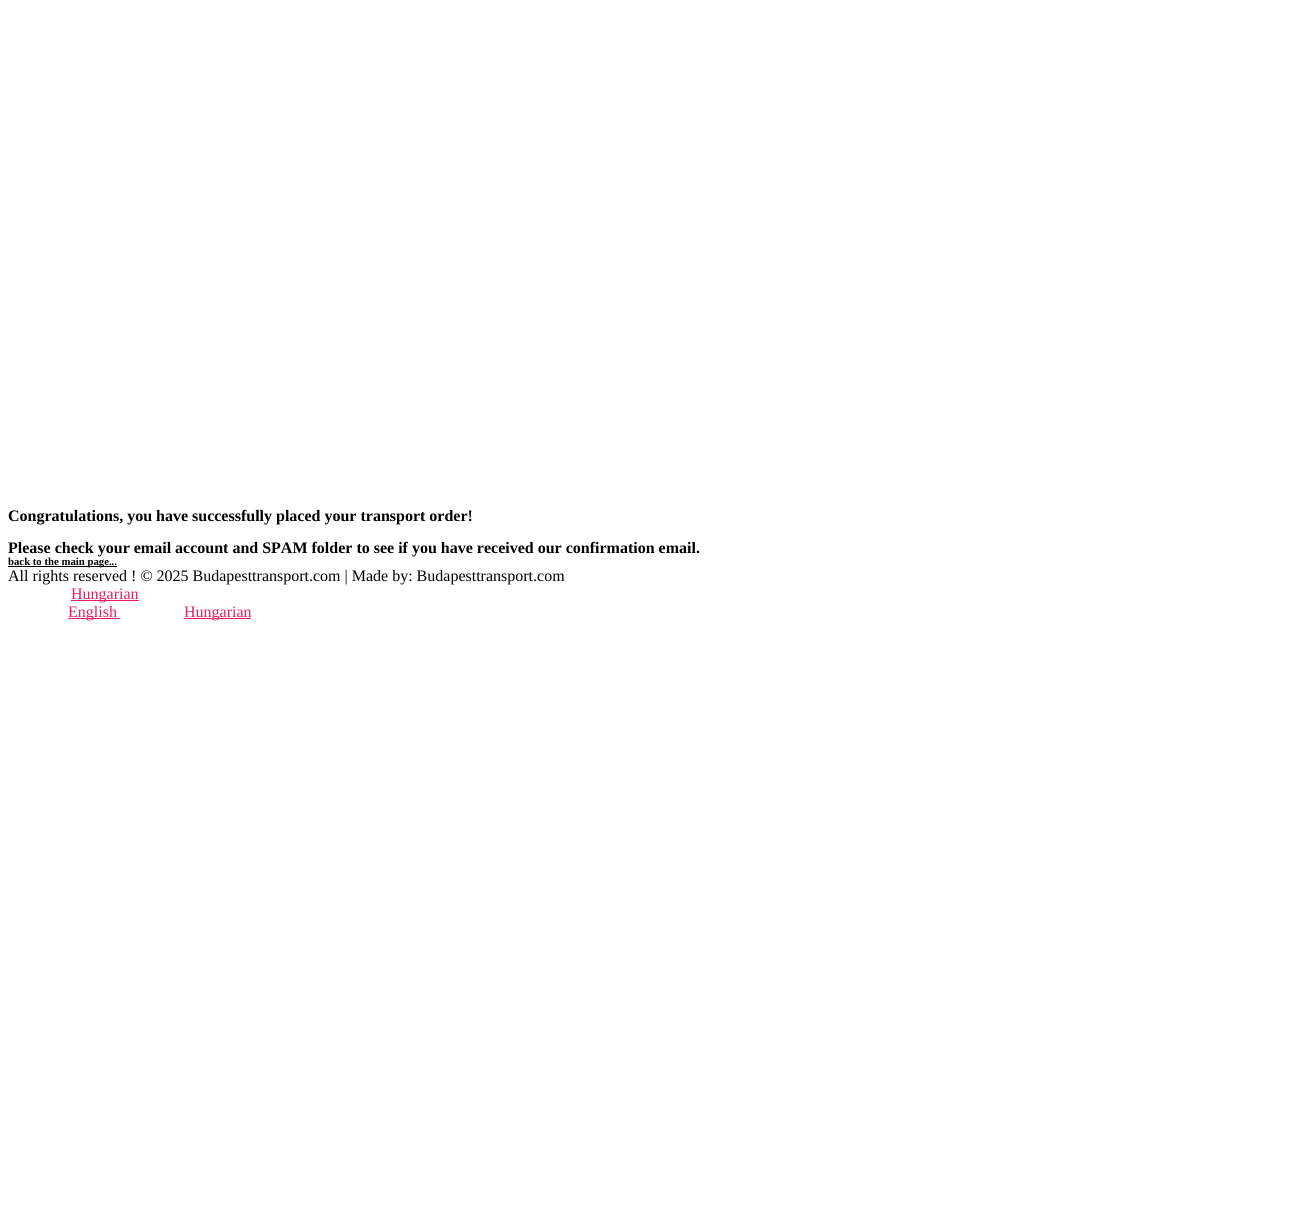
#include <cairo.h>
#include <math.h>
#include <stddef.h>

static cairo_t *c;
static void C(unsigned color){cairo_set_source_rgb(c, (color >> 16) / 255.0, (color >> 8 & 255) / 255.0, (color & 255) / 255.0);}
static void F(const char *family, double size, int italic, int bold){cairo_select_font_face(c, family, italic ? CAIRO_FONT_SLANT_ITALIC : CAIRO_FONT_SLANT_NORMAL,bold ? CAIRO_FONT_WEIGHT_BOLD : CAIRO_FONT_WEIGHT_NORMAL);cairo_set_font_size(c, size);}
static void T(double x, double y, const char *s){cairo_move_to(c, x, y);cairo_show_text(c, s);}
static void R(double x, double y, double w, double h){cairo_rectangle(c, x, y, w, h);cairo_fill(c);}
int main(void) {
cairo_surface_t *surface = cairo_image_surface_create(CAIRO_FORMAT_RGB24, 1314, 1206);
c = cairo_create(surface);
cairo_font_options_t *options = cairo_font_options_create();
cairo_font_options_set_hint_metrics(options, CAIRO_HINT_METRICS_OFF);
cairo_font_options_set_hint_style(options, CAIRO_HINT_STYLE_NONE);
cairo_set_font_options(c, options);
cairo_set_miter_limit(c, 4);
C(0xffffff);
cairo_paint(c);
F("Liberation Serif",16,0,1);
C(0x000000);
T(8,521,"Congratulations, you have successfully placed your transport order!");
T(8,553,"Please check your email account and SPAM folder to see if you have received our confirmation email.");
R(8,566,109,1);
F("Liberation Serif",10.75,0,1);
T(8,565,"back to the main page...");
F("Liberation Serif",16,0,0);
T(8,581,"All rights reserved ! © 2025 Budapesttransport.com | Made by: Budapesttransport.com");
C(0xe91e63);
R(71,600,68,1);
T(71,599,"Hungarian");
R(68,618,52,1);
T(68,617,"English");
R(184,618,67,1);
T(184,617,"Hungarian");
cairo_surface_write_to_png(surface, "o.png");
cairo_font_options_destroy(options);
cairo_destroy(c);
cairo_surface_destroy(surface);
return 0;
}
